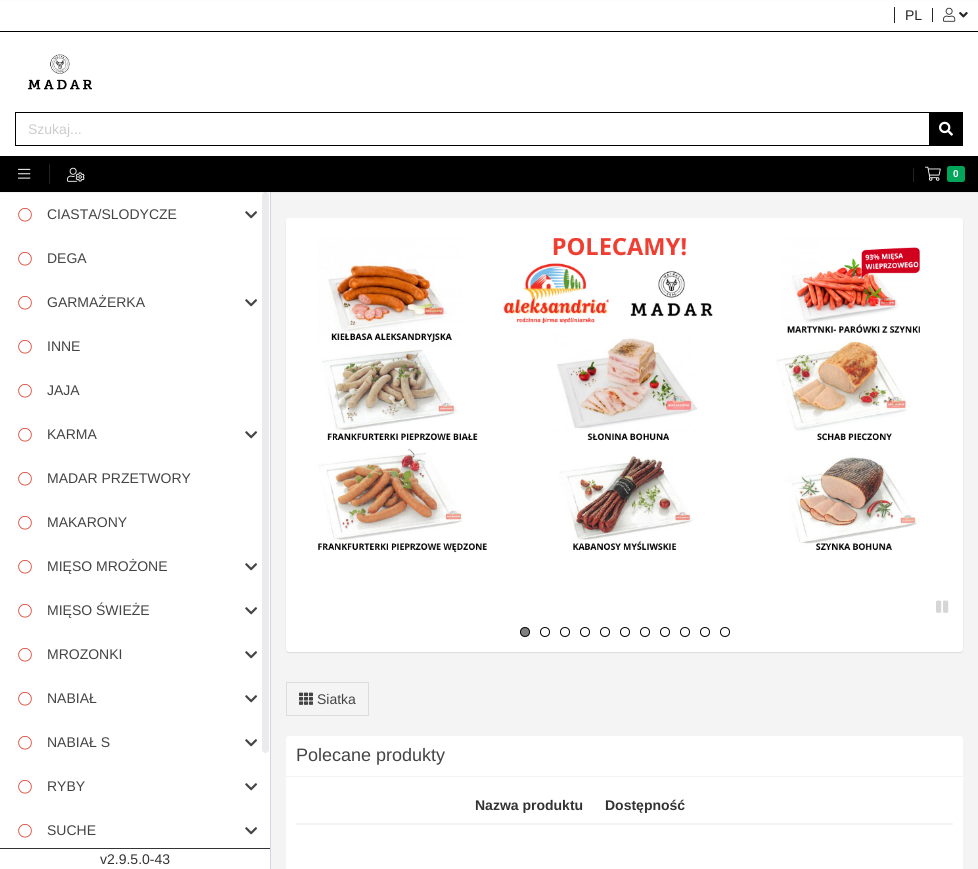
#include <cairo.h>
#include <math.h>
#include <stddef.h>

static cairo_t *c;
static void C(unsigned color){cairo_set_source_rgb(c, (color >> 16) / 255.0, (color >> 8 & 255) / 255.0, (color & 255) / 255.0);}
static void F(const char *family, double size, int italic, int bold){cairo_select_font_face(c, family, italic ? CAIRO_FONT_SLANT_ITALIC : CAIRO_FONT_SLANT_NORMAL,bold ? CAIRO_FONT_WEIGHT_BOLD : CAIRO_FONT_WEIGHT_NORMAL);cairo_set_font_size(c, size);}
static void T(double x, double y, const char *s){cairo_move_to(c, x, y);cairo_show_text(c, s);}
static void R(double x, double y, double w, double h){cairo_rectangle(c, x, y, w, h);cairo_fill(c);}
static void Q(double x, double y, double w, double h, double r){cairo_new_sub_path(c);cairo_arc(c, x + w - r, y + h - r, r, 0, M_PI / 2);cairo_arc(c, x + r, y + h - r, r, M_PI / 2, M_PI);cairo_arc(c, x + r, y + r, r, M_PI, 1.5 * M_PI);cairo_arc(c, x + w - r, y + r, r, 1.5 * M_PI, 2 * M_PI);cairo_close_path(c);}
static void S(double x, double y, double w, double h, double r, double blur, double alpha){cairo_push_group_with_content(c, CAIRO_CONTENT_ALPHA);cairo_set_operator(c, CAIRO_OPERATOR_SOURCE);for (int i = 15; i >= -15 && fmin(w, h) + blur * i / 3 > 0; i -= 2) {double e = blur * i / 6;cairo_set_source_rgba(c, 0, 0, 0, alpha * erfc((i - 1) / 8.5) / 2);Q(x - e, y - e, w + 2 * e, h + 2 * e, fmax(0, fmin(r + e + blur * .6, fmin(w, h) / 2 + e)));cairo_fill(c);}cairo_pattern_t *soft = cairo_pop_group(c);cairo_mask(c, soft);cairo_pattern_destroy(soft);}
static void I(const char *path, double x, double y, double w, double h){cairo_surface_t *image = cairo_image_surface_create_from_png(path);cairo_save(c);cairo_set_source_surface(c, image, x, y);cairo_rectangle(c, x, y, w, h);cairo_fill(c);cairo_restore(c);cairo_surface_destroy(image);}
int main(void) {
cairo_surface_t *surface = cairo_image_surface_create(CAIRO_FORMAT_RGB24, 978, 869);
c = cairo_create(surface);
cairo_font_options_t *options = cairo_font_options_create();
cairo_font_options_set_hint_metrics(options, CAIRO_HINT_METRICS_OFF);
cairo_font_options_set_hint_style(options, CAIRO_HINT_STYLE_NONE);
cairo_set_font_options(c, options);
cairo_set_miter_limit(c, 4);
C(0xffffff);
cairo_paint(c);
C(0xebebeb);
Q(262,192,7,561,3.5);
cairo_fill(c);
C(0xf4f4f5);
R(271,192,707,677);
C(0xd2d6de);
R(270,192,1,677);
C(0x000000);
S(0,1,978,192,0,.5,.05);
C(0xffffff);
R(0,1,978,30);
C(0x000000);
R(0,31,978,1);
F("Liberation Sans",14,0,0);
C(0x262626);
T(905,20,"PL");
R(894,7,1,16);
R(932,8,1,14);
I("1.png",943,7,13,15);
I("2.png",959,12,9,6);
C(0xffffff);
R(0,32,978,124);
I("3.png",27,54,65,36);
cairo_rectangle(c,15.5,112.5,947,33);
C(0x000000);
cairo_set_line_width(c,1);
cairo_stroke(c);
C(0xcccccc);
T(28,134,"Szukaj...");
C(0x000000);
R(929,113,33,32);
I("4.png",939,121,14,15);
R(0,156,978,36);
C(0x222222);
R(49,164,1,20);
I("5.png",18,168,13,11);
R(913,168,1,14);
I("6.png",67,167,18,15);
I("7.png",925,166,16,15);
C(0x00a65a);
Q(947,166,18,16,2.5);
cairo_fill(c);
F("Liberation Sans",10,0,1);
C(0xffffff);
T(953,177,"0");
I("8.png",18,208,14,14);
F("Liberation Sans",14,0,0);
C(0x444444);
T(47,219,"CIASTA/SLODYCZE");
I("9.png",245,211,12,8);
I("8.png",18,252,14,14);
T(47,263,"DEGA");
I("8.png",18,296,14,14);
T(47,307,"GARMAŻERKA");
I("9.png",245,299,12,8);
I("8.png",18,340,14,14);
T(47,351,"INNE");
I("8.png",18,384,14,14);
T(47,395,"JAJA");
I("8.png",18,428,14,14);
T(47,439,"KARMA");
I("9.png",245,431,12,8);
I("8.png",18,472,14,14);
T(47,483,"MADAR PRZETWORY");
I("8.png",18,516,14,14);
T(47,527,"MAKARONY");
I("8.png",18,560,14,14);
T(47,571,"MIĘSO MROŻONE");
I("9.png",245,563,12,8);
I("8.png",18,604,14,14);
T(47,615,"MIĘSO ŚWIEŻE");
I("9.png",245,607,12,8);
I("8.png",18,648,14,14);
T(47,659,"MROZONKI");
I("9.png",245,651,12,8);
I("8.png",18,692,14,14);
T(47,703,"NABIAŁ");
I("9.png",245,695,12,8);
I("8.png",18,736,14,14);
T(47,747,"NABIAŁ S");
I("9.png",245,739,12,8);
I("8.png",18,780,14,14);
T(47,791,"RYBY");
I("9.png",245,783,12,8);
I("8.png",18,824,14,14);
T(47,835,"SUCHE");
I("9.png",245,827,12,8);
C(0x333333);
R(0,848,270,1);
T(100,864,"v2.9.5.0-43");
C(0x000000);
S(286,219,677,434,3,.5,.1);
C(0xffffff);
Q(286,218,677,434,3);
cairo_fill(c);
I("10.png",318,237,602,316);
I("11.png",936,600,13,13);
C(0x808080);
cairo_arc(c,525,632,4.5,0,2 * M_PI);
cairo_fill_preserve(c);
C(0x000000);
cairo_stroke(c);
cairo_arc(c,545,632,4.5,0,2 * M_PI);
cairo_stroke(c);
cairo_arc(c,565,632,4.5,0,2 * M_PI);
cairo_stroke(c);
cairo_arc(c,585,632,4.5,0,2 * M_PI);
cairo_stroke(c);
cairo_arc(c,605,632,4.5,0,2 * M_PI);
cairo_stroke(c);
cairo_arc(c,625,632,4.5,0,2 * M_PI);
cairo_stroke(c);
cairo_arc(c,645,632,4.5,0,2 * M_PI);
cairo_stroke(c);
cairo_arc(c,665,632,4.5,0,2 * M_PI);
cairo_stroke(c);
cairo_arc(c,685,632,4.5,0,2 * M_PI);
cairo_stroke(c);
cairo_arc(c,705,632,4.5,0,2 * M_PI);
cairo_stroke(c);
cairo_arc(c,725,632,4.5,0,2 * M_PI);
cairo_stroke(c);
cairo_rectangle(c,286.5,682.5,82,33);
C(0xdddddd);
cairo_stroke(c);
I("12.png",299,692,14,13);
C(0x444444);
T(317,704,"Siatka");
C(0xffffff);
Q(286,736,677,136,3);
cairo_fill(c);
C(0xf4f4f4);
R(286,776,677,1);
F("Liberation Sans",18,0,0);
C(0x444444);
T(296,761,"Polecane produkty");
F("Liberation Sans",14,0,1);
C(0x333333);
T(475,810,"Nazwa produktu");
T(605,810,"Dostępność");
C(0xf4f4f4);
R(296,823,657,2);
cairo_surface_write_to_png(surface, "o.png");
cairo_font_options_destroy(options);
cairo_destroy(c);
cairo_surface_destroy(surface);
return 0;
}
